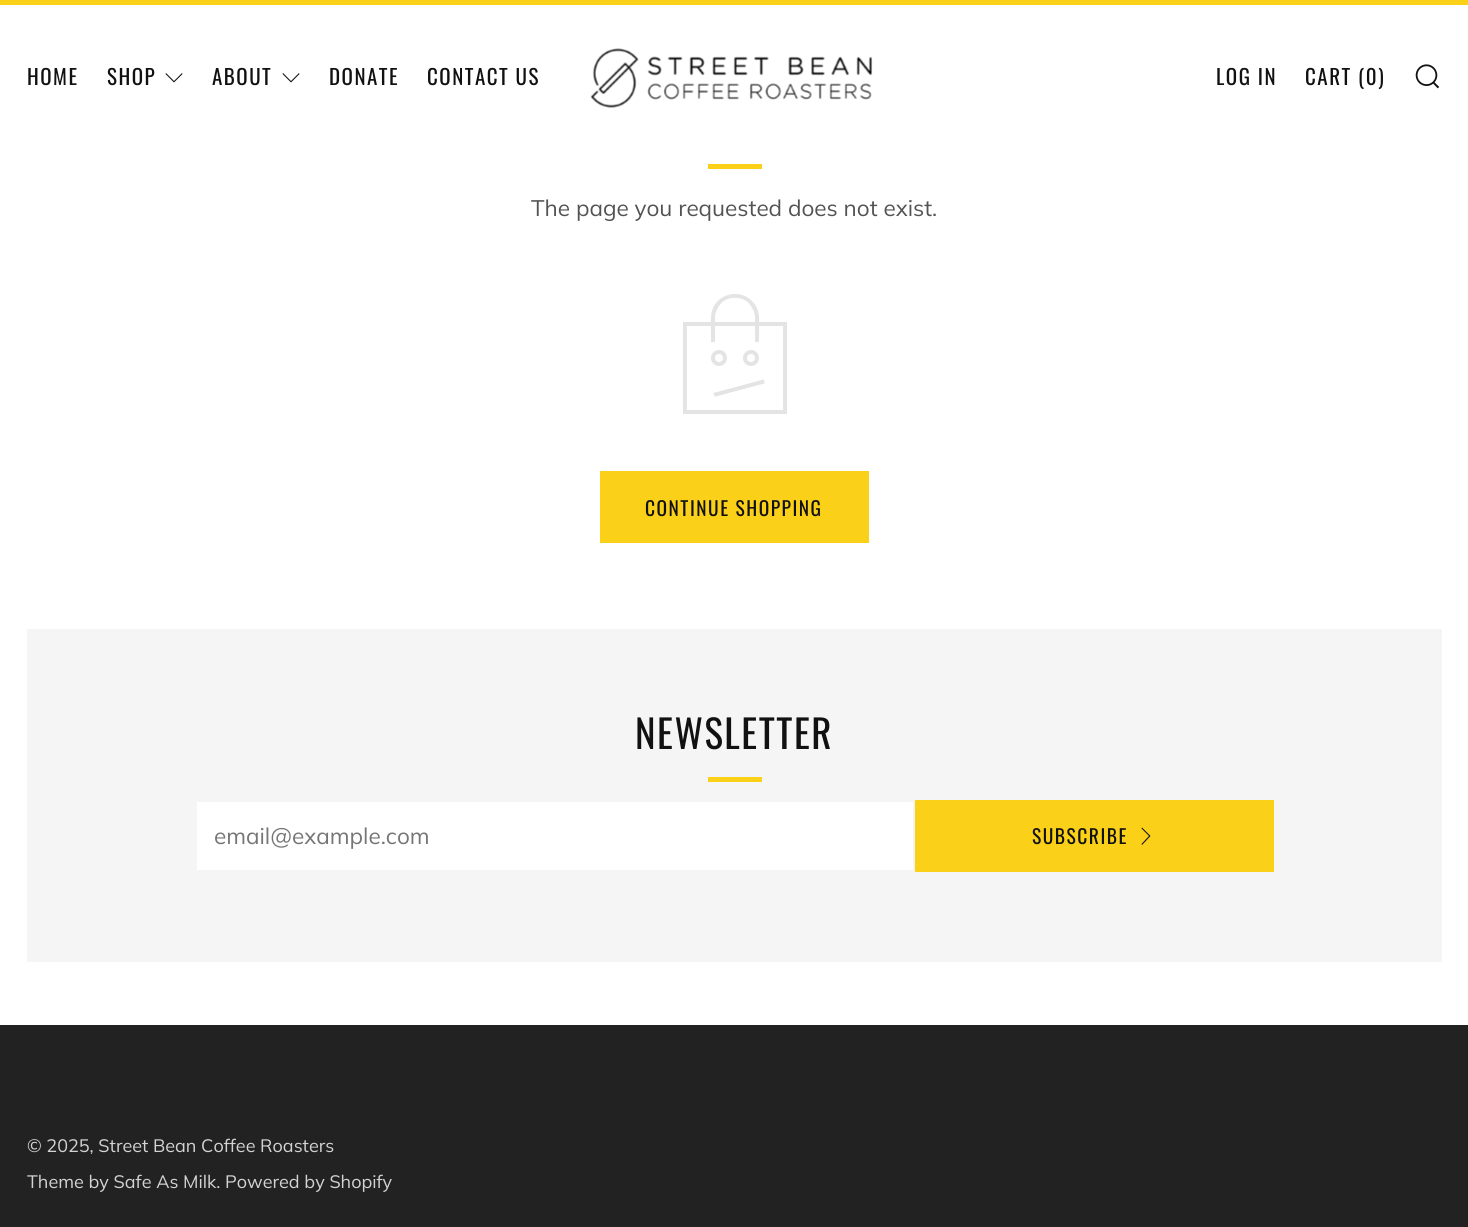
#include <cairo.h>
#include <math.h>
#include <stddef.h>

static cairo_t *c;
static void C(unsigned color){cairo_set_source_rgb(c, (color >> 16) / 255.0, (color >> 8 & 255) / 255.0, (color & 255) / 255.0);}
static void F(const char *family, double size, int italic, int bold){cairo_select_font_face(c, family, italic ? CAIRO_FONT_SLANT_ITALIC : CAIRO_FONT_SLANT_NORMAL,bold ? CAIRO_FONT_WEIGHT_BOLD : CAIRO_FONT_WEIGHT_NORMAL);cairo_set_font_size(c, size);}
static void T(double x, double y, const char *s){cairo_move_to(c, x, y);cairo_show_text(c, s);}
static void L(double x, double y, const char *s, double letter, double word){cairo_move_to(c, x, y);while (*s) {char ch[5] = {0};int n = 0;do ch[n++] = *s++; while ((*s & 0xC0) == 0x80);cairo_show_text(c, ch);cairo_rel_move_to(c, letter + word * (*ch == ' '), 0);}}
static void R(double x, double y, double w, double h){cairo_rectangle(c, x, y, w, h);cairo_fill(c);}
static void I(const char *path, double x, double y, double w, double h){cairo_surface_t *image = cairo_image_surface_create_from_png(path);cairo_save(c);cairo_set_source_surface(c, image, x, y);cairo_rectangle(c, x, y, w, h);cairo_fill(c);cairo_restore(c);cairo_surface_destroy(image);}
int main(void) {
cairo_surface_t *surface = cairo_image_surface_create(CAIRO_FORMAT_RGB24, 1468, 1227);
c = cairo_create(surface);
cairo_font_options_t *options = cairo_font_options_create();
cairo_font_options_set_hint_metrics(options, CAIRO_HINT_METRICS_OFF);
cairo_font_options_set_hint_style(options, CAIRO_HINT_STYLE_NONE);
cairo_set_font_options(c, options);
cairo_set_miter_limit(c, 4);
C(0xffffff);
cairo_paint(c);
C(0xfad018);
R(0,0,1468,5);
I("1.png",590,48,283,60);
F("Oswald",21,0,0);
C(0x111111);
L(27,85,"HOME",1.5,0);
L(107,85,"SHOP",1.5,0);
cairo_new_path(c);
cairo_move_to(c,166,73);
cairo_line_to(c,165.5,74);
cairo_line_to(c,174,82.5);
cairo_line_to(c,182.5,74);
cairo_line_to(c,182,73);
cairo_line_to(c,174,81);
cairo_close_path(c);
cairo_fill(c);
L(212,85,"ABOUT",1.5,0);
cairo_new_path(c);
cairo_move_to(c,283,73);
cairo_line_to(c,282.5,74);
cairo_line_to(c,291,82.5);
cairo_line_to(c,299.5,74);
cairo_line_to(c,299,73);
cairo_line_to(c,291,81);
cairo_close_path(c);
cairo_fill(c);
L(329,85,"DONATE",1.5,0);
L(427,85,"CONTACT US",1.5,0);
L(1216,85,"LOG IN",1.5,0);
L(1305,85,"CART (0)",1.5,0);
I("2.png",1415,64,25,25);
C(0xfad018);
R(708,164,54,5);
F("Muli",22.5,0,0);
C(0x535353);
T(531,216,"The page you requested does not exist.");
I("3.png",683,294,104,120);
C(0xfad018);
R(600,471,269,72);
F("Oswald",19.5,0,0);
C(0x111111);
L(645,516,"CONTINUE SHOPPING",1.5,0);
C(0xf5f5f5);
R(27,629,1415,333);
F("Oswald",39,0,0);
C(0x111111);
L(635,749,"NEWSLETTER",1.5,0);
C(0xfad018);
R(708,777,54,5);
C(0xffffff);
R(197,802,716,68);
cairo_save(c);
cairo_rectangle(c,215,821,681,28);
cairo_clip(c);
F("Muli",22.5,0,0);
C(0x757575);
T(214,844,"email@example.com");
cairo_restore(c);
C(0xfad018);
R(915,800,359,72);
F("Oswald",19.5,0,0);
C(0x111111);
L(1032,844,"SUBSCRIBE",1.5,0);
cairo_new_path(c);
cairo_move_to(c,1141.5,844);
cairo_line_to(c,1142,845);
cairo_line_to(c,1150.5,836);
cairo_line_to(c,1142,827.5);
cairo_line_to(c,1141.5,828.5);
cairo_line_to(c,1149,836);
cairo_close_path(c);
cairo_fill(c);
C(0x222222);
R(0,1025,1468,202);
F("Muli",18,0,0);
C(0xd3d3d3);
T(27,1152,"© 2025, Street Bean Coffee Roasters");
T(27,1188,"Theme by Safe As Milk. Powered by Shopify");
cairo_surface_write_to_png(surface, "o.png");
cairo_font_options_destroy(options);
cairo_destroy(c);
cairo_surface_destroy(surface);
return 0;
}
